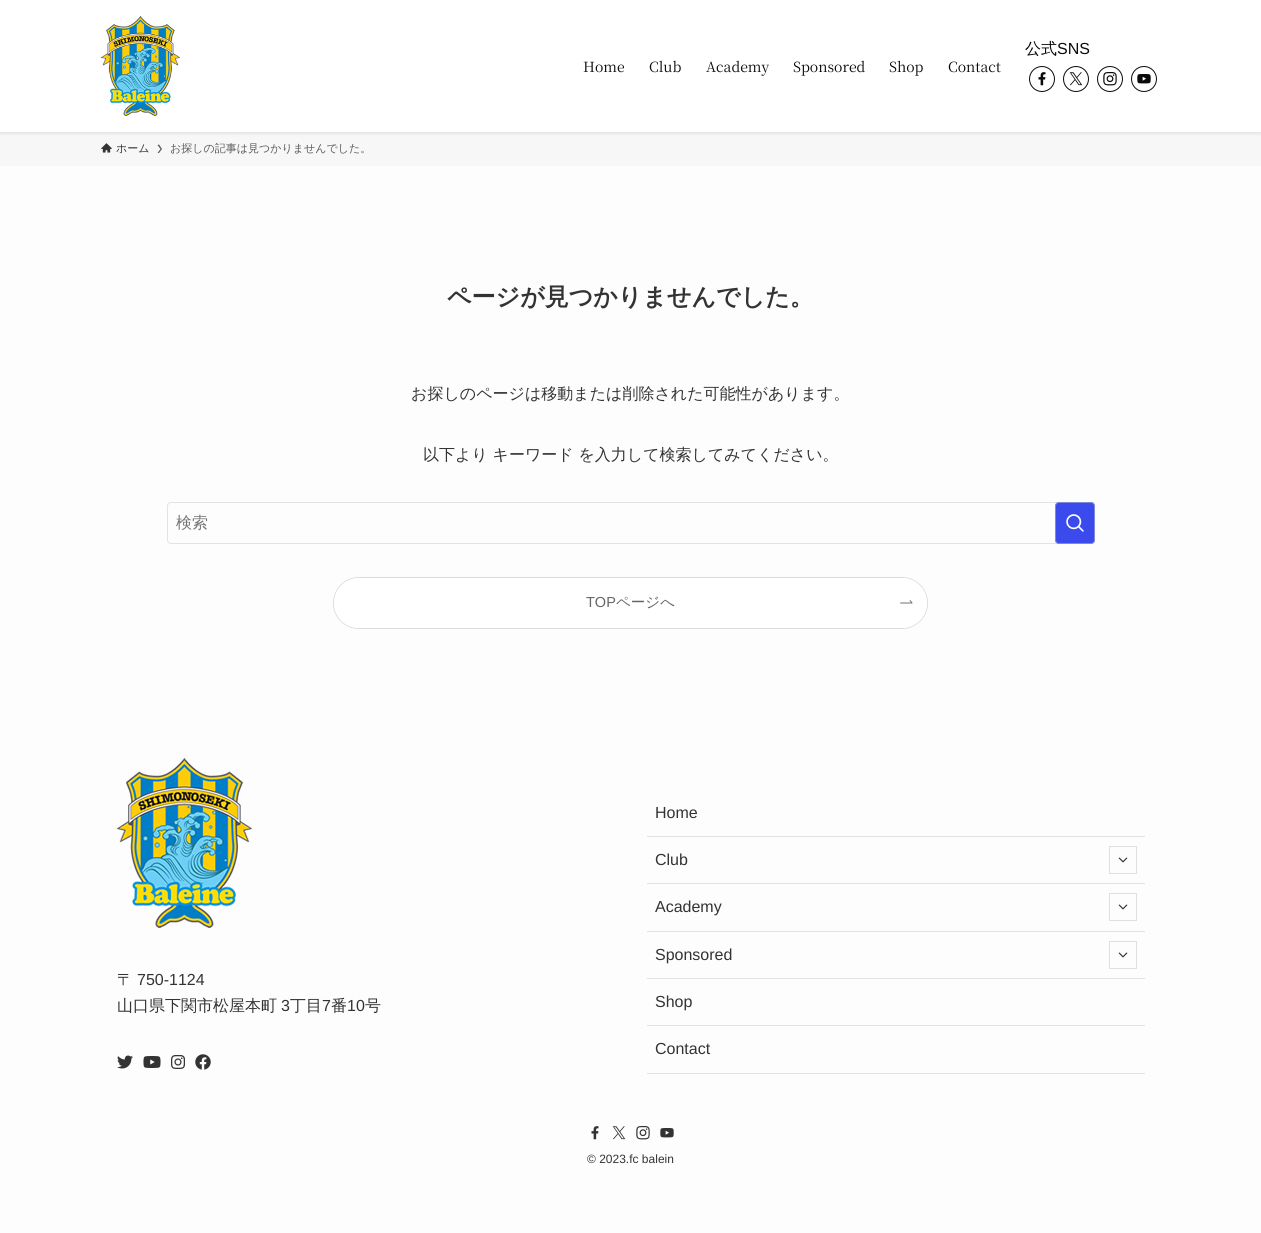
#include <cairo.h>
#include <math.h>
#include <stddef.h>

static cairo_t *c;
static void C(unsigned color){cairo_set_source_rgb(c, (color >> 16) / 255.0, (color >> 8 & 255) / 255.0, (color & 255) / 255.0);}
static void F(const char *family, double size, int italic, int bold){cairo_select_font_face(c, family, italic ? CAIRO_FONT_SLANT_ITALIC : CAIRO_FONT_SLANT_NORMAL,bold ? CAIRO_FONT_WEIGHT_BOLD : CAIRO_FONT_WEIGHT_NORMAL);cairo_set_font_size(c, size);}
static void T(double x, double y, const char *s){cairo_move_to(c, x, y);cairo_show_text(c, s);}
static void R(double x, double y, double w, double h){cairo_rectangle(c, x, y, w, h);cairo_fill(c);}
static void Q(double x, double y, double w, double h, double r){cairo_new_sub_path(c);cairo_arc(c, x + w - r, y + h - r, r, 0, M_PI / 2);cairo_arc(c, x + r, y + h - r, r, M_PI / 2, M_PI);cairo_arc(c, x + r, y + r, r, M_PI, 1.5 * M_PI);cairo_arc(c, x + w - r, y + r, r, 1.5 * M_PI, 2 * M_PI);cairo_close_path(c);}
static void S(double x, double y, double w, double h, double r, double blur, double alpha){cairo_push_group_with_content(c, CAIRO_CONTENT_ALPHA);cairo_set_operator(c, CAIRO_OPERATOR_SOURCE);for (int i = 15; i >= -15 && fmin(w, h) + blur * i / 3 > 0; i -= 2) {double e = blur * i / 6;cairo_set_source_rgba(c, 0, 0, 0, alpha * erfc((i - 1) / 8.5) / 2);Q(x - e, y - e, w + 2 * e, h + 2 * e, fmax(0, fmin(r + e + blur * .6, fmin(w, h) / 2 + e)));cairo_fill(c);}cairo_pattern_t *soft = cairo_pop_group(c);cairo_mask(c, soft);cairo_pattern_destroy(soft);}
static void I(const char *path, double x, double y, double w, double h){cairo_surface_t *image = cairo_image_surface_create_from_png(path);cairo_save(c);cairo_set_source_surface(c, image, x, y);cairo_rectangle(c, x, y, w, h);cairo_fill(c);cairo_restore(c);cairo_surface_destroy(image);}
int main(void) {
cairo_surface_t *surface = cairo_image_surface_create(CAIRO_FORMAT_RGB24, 1261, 1233);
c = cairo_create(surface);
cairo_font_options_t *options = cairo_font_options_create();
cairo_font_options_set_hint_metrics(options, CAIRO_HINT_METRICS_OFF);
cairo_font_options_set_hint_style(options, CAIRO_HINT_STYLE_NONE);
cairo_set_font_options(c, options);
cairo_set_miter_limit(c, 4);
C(0xfdfdfd);
cairo_paint(c);
C(0xf7f7f7);
R(0,132,1261,34);
C(0x000000);
S(0,1,1261,132,0,2,.12);
C(0xffffff);
R(0,0,1261,132);
I("1.png",101,16,79,100);
F("WenQuanYi Zen Hei Medium",16,0,0);
C(0x0a0a0a);
T(1025,54,"公式");
F("Liberation Sans",16,0,0);
T(1057,54,"SNS");
cairo_new_path(c);
cairo_arc(c,1042,79,12.5,0,2 * M_PI);
cairo_set_line_width(c,1);
cairo_stroke(c);
I("2.png",1038,72,8,14);
cairo_arc(c,1076,79,12.5,0,2 * M_PI);
cairo_stroke(c);
I("3.png",1069,72,14,14);
cairo_arc(c,1110,79,12.5,0,2 * M_PI);
cairo_stroke(c);
I("4.png",1103,72,14,14);
cairo_arc(c,1144,79,12.5,0,2 * M_PI);
cairo_stroke(c);
I("5.png",1137,74,14,10);
F("Noto Serif JP",14,0,0);
T(583,72,"Home");
T(649,72,"Club");
T(706,72,"Academy");
T(793,72,"Sponsored");
T(889,72,"Shop");
T(948,72,"Contact");
I("6.png",101,143,11,10);
F("WenQuanYi Zen Hei Medium",11,0,0);
C(0x333333);
T(116,152,"ホーム");
C(0x5a5a5a);
cairo_new_path(c);
cairo_move_to(c,159,144.5);
cairo_line_to(c,157.5,145);
cairo_line_to(c,160.5,149);
cairo_line_to(c,157.5,153);
cairo_line_to(c,159,153);
cairo_line_to(c,162,149);
cairo_close_path(c);
cairo_fill(c);
T(170,152,"お探しの記事は見つかりませんでした。");
F("WenQuanYi Zen Hei",24,0,1);
C(0x333333);
T(447,305,"ページが見つかりませんでした。");
F("WenQuanYi Zen Hei Medium",16,0,0);
T(411,399,"お探しのページは移動または削除された可能性があります。");
T(423,460,"以下より キーワード を入力して検索してみてください。");
Q(167.5,502.5,927,41,3.5);
C(0xe3e3e3);
cairo_stroke(c);
C(0x757575);
T(176,528,"検索");
C(0x3b4aed);
Q(1055,502,40,42,4);
cairo_fill(c);
Q(1055.5,502.5,39,41,3.5);
cairo_set_source_rgba(c,0.78,0.78,0.78,0.5);
cairo_stroke(c);
I("7.png",1066,514,18,18);
Q(333.5,577.5,594,51,25.5);
C(0xdcdcdc);
cairo_stroke(c);
C(0xffffff);
Q(334,578,593,50,25);
cairo_fill(c);
F("Liberation Sans",14.5,0,0);
C(0x666666);
T(586,607,"TOP");
F("WenQuanYi Zen Hei Medium",14.5,0,0);
T(616,607,"ページへ");
I("8.png",900,600,13,4);
I("9.png",117,758,135,170);
F("WenQuanYi Zen Hei Medium",16,0,0);
C(0x333333);
T(117,985,"〒");
F("Liberation Sans",16,0,0);
T(137,985,"750-1124");
F("WenQuanYi Zen Hei Medium",16,0,0);
T(117,1011,"山口県下関市松屋本町");
F("Liberation Sans",16,0,0);
T(281,1011,"3");
F("WenQuanYi Zen Hei Medium",16,0,0);
T(290,1011,"丁目");
F("Liberation Sans",16,0,0);
T(322,1011,"7");
F("WenQuanYi Zen Hei Medium",16,0,0);
T(331,1011,"番");
F("Liberation Sans",16,0,0);
T(347,1011,"10");
F("WenQuanYi Zen Hei Medium",16,0,0);
T(365,1011,"号");
I("10.png",117,1055,16,14);
I("11.png",143,1056,18,12);
I("12.png",171,1055,14,14);
I("13.png",195,1054,16,16);
C(0xe2e2e2);
R(647,836,498,1);
F("Liberation Sans",16,0,0);
C(0x333333);
T(655,818,"Home");
C(0xe2e2e2);
R(647,883,498,1);
C(0x333333);
T(655,865,"Club");
I("14.png",1118,857,10,6);
cairo_rectangle(c,1109.5,846.5,27,27);
C(0xdfdfdf);
cairo_stroke(c);
C(0xe2e2e2);
R(647,931,498,1);
C(0x333333);
T(655,912,"Academy");
I("14.png",1118,904,10,6);
cairo_rectangle(c,1109.5,893.5,27,27);
C(0xdfdfdf);
cairo_stroke(c);
C(0xe2e2e2);
R(647,978,498,1);
C(0x333333);
T(655,960,"Sponsored");
I("14.png",1118,952,10,6);
cairo_rectangle(c,1109.5,941.5,27,27);
C(0xdfdfdf);
cairo_stroke(c);
C(0xe2e2e2);
R(647,1025,498,1);
C(0x333333);
T(655,1007,"Shop");
C(0xe2e2e2);
R(647,1073,498,1);
C(0x333333);
T(655,1054,"Contact");
I("15.png",591,1126,8,14);
I("16.png",612,1126,14,14);
I("17.png",636,1126,14,14);
I("18.png",660,1128,14,10);
F("Liberation Sans",12,0,0);
T(587,1163,"© 2023.fc balein");
cairo_surface_write_to_png(surface, "o.png");
cairo_font_options_destroy(options);
cairo_destroy(c);
cairo_surface_destroy(surface);
return 0;
}
